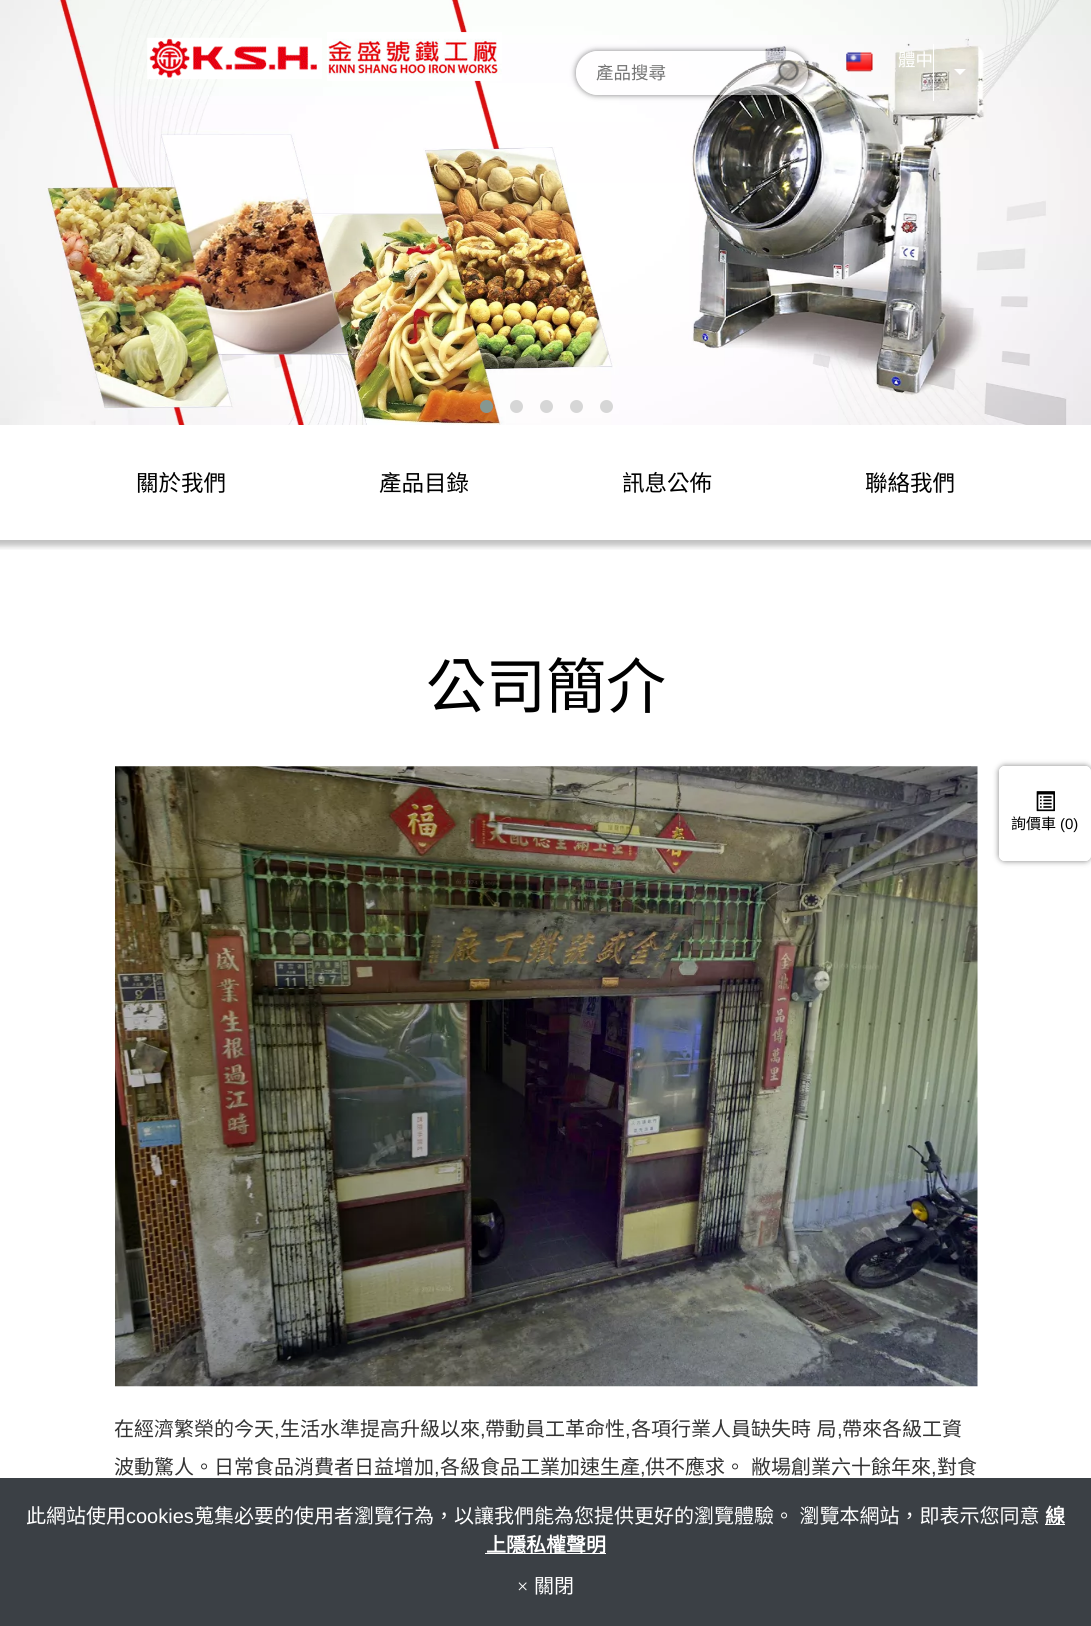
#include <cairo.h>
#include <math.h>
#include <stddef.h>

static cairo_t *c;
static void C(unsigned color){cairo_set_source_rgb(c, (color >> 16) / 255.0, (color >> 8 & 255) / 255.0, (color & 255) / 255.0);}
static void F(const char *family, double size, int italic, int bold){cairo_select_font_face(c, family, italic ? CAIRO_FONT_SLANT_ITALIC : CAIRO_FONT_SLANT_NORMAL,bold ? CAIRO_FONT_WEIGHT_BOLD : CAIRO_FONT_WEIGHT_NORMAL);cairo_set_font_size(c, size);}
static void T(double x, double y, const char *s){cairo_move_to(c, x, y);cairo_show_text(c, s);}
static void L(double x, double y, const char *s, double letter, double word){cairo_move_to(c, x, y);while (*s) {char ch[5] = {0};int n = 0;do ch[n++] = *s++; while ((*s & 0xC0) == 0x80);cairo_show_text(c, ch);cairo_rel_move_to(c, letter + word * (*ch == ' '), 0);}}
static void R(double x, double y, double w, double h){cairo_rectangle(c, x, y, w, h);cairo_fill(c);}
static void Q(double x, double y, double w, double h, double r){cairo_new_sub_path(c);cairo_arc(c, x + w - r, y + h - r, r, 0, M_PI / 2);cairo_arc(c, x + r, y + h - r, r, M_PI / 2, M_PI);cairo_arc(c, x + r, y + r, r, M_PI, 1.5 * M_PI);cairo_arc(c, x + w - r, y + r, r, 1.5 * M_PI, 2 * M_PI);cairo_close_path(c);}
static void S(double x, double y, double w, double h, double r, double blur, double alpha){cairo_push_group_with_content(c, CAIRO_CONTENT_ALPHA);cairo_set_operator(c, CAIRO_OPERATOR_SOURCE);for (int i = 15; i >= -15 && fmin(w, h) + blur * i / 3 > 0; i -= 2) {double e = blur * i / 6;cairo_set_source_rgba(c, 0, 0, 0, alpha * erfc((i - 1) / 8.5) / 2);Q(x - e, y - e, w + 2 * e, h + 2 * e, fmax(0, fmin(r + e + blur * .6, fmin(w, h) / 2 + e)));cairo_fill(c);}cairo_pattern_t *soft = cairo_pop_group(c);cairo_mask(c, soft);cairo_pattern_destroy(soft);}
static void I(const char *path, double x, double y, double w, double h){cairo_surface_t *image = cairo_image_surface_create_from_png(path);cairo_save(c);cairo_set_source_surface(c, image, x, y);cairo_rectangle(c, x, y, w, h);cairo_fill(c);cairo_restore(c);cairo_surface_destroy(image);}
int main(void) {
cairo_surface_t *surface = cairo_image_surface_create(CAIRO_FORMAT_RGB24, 1091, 1626);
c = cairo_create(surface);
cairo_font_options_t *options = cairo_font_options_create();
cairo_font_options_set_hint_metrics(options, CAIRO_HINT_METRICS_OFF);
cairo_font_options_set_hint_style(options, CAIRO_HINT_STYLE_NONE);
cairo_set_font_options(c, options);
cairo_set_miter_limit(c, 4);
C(0xffffff);
cairo_paint(c);
cairo_save(c);
cairo_rectangle(c,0,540,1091,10);
cairo_clip(c);
C(0x000000);
S(-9,431,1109,115,0,3,.25);
cairo_restore(c);
I("1.png",0,0,1091,425);
C(0x869791);
cairo_arc(c,486.5,406.5,6.5,0,2 * M_PI);
cairo_fill(c);
C(0xd6d6d6);
cairo_arc(c,516.5,406.5,6.5,0,2 * M_PI);
cairo_fill(c);
cairo_arc(c,546.5,406.5,6.5,0,2 * M_PI);
cairo_fill(c);
cairo_arc(c,576.5,406.5,6.5,0,2 * M_PI);
cairo_fill(c);
cairo_arc(c,606.5,406.5,6.5,0,2 * M_PI);
cairo_fill(c);
I("2.png",147,32,355,49);
I("3.png",846,52,27,20);
F("Noto Sans CJK TC",17.5,0,0);
C(0xffffff);
T(898,66,"體中");
R(933,44,1,57);
cairo_new_path(c);
cairo_move_to(c,954,69);
cairo_line_to(c,966,69);
cairo_line_to(c,960,75);
cairo_close_path(c);
cairo_fill(c);
cairo_save(c);
cairo_set_fill_rule(c,CAIRO_FILL_RULE_EVEN_ODD);
cairo_new_path(c);
cairo_move_to(c,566,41);
cairo_line_to(c,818,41);
cairo_line_to(c,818,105);
cairo_line_to(c,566,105);
cairo_close_path(c);
cairo_move_to(c,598,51);
cairo_line_to(c,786,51);
cairo_curve_to(c,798,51,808,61,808,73);
cairo_curve_to(c,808,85,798,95,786,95);
cairo_line_to(c,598,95);
cairo_curve_to(c,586,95,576,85,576,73);
cairo_curve_to(c,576,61,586,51,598,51);
cairo_close_path(c);
cairo_clip(c);
C(0x000000);
S(576,51,232,44,22,3,.5);
cairo_restore(c);
cairo_set_source_rgba(c,1,1,1,0.5);
Q(576,51,232,44,22);
cairo_fill(c);
C(0x757575);
T(596,79,"產品搜尋");
I("4.png",773,60,26,25);
F("Noto Sans CJK TC",22.5,0,0);
C(0x000000);
T(136,491,"關於我們");
T(379,491,"產品目錄");
T(622,491,"訊息公佈");
T(865,491,"聯絡我們");
F("Noto Sans CJK TC",60,0,0);
T(426,708,"公司簡介");
I("5.png",115,766,863,621);
F("Noto Sans CJK TC",20,0,0);
C(0x333333);
T(114,1436,"在經濟繁榮的今天");
F("Liberation Sans",20,0,0);
T(274,1436,",");
F("Noto Sans CJK TC",20,0,0);
T(280,1436,"生活水準提高升級以來");
F("Liberation Sans",20,0,0);
T(480,1436,",");
F("Noto Sans CJK TC",20,0,0);
T(485,1436,"帶動員工革命性");
F("Liberation Sans",20,0,0);
T(625,1436,",");
F("Noto Sans CJK TC",20,0,0);
L(631,1436,"各項行業人員缺失時 局",0,1);
F("Liberation Sans",20,0,0);
T(837,1436,",");
F("Noto Sans CJK TC",20,0,0);
T(842,1436,"帶來各級工資");
T(114,1474,"波動驚人。日常食品消費者日益增加");
F("Liberation Sans",20,0,0);
T(434,1474,",");
F("Noto Sans CJK TC",20,0,0);
T(440,1474,"各級食品工業加速生產");
F("Liberation Sans",20,0,0);
T(640,1474,",");
F("Noto Sans CJK TC",20,0,0);
T(645,1474,"供不應求。");
T(751,1474,"敝場創業六十餘年來");
F("Liberation Sans",20,0,0);
T(931,1474,",");
F("Noto Sans CJK TC",20,0,0);
T(937,1474,"對食");
cairo_save(c);
cairo_set_fill_rule(c,CAIRO_FILL_RULE_EVEN_ODD);
cairo_new_path(c);
cairo_move_to(c,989,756);
cairo_line_to(c,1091,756);
cairo_line_to(c,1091,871);
cairo_line_to(c,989,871);
cairo_close_path(c);
cairo_move_to(c,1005,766);
cairo_line_to(c,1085,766);
cairo_curve_to(c,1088.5,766,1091,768.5,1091,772);
cairo_line_to(c,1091,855);
cairo_curve_to(c,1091,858.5,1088.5,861,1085,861);
cairo_line_to(c,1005,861);
cairo_curve_to(c,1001.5,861,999,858.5,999,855);
cairo_line_to(c,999,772);
cairo_curve_to(c,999,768.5,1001.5,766,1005,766);
cairo_close_path(c);
cairo_clip(c);
C(0x000000);
S(999,766,92,95,6,3,.5);
cairo_restore(c);
cairo_set_source_rgba(c,1,1,1,0.8);
Q(999,766,92,95,6);
cairo_fill(c);
I("6.png",1036,791,19,21);
F("Noto Sans CJK TC",15,0,0);
C(0x000000);
T(1011,829,"詢價車");
F("Liberation Sans",15,0,0);
T(1060,829,"(0)");
C(0x3b4045);
R(0,1478,1091,148);
F("Noto Sans CJK TC",20,0,0);
C(0xffffff);
T(26,1523,"此網站使用");
F("Liberation Sans",20,0,0);
T(126,1523,"cookies");
F("Noto Sans CJK TC",20,0,0);
L(194,1523,"蒐集必要的使用者瀏覽行為，以讓我們能為您提供更好的瀏覽體驗。 瀏覽本網站，即表示您同意",0,1);
R(1045,1524,20,1);
F("Noto Sans CJK TC",20,0,1);
T(1045,1523,"線");
R(485,1553,121,1);
T(486,1552,"上隱私權聲明");
F("Liberation Serif",20,0,0);
T(517,1593,"×");
F("Noto Sans CJK TC",20,0,0);
T(534,1593,"關閉");
cairo_surface_write_to_png(surface, "o.png");
cairo_font_options_destroy(options);
cairo_destroy(c);
cairo_surface_destroy(surface);
return 0;
}
